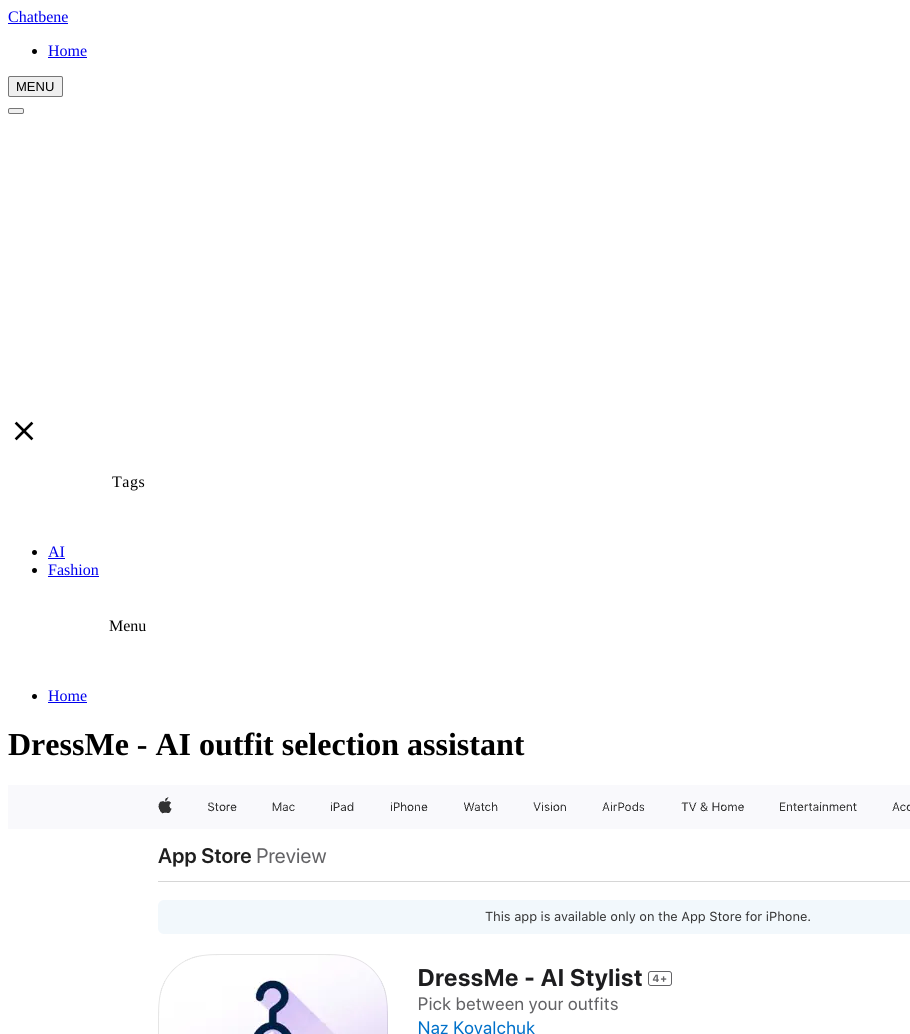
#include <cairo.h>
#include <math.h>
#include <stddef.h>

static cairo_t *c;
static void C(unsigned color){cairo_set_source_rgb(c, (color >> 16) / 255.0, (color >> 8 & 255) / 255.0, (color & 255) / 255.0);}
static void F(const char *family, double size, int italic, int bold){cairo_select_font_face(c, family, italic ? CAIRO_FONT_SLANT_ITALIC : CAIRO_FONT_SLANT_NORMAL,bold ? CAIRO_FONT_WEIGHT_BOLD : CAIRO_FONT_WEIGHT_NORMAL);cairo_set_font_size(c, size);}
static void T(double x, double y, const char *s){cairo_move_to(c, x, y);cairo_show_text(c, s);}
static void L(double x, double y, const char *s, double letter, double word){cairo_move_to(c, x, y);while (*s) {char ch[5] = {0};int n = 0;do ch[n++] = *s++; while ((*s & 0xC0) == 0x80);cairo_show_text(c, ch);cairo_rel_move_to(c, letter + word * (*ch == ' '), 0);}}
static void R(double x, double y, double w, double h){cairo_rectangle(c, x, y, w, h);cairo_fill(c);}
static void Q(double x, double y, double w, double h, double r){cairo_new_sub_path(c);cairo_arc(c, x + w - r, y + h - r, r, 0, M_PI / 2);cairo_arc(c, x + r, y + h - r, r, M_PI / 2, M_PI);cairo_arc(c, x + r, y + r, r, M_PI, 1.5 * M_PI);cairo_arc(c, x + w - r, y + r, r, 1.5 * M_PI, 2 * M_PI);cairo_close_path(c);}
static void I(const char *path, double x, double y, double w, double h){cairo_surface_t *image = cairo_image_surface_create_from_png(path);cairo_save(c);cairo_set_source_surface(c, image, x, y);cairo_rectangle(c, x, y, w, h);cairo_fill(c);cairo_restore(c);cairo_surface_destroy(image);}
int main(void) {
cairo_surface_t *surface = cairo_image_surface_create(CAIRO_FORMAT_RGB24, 910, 1034);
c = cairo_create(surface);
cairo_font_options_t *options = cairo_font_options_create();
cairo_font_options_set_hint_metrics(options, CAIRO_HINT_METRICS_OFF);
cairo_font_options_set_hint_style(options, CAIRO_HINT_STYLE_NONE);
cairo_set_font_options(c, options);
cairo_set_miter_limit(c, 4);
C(0xffffff);
cairo_paint(c);
F("Liberation Serif",16,0,0);
C(0x0000ee);
T(8,22,"Chatbene");
R(8,23,60,1);
C(0x000000);
cairo_new_path(c);
cairo_arc(c,34.5,51.5,2.5,0,2 * M_PI);
cairo_fill(c);
C(0x0000ee);
T(48,56,"Home");
R(48,57,39,1);
C(0xefefef);
Q(8.5,76.5,54,20,1.5);
cairo_fill_preserve(c);
C(0x767676);
cairo_set_line_width(c,1);
cairo_stroke(c);
F("Liberation Sans",13,0,0);
C(0x000000);
T(16,91,"MENU");
C(0xefefef);
Q(8.5,108.5,15,5,1.5);
cairo_fill_preserve(c);
C(0x767676);
cairo_stroke(c);
I("1.png",14,421,20,20);
F("Liberation Serif",16,0,0);
C(0x000000);
L(112,487,"Tags",.5,0);
cairo_new_path(c);
cairo_arc(c,34.5,552.5,2.5,0,2 * M_PI);
cairo_fill(c);
C(0x0000ee);
T(48,557,"AI");
R(48,558,17,1);
C(0x000000);
cairo_new_path(c);
cairo_arc(c,34.5,570.5,2.5,0,2 * M_PI);
cairo_fill(c);
C(0x0000ee);
T(48,575,"Fashion");
R(48,576,51,1);
C(0x000000);
T(109,631,"Menu");
cairo_new_path(c);
cairo_arc(c,34.5,696.5,2.5,0,2 * M_PI);
cairo_fill(c);
C(0x0000ee);
T(48,701,"Home");
R(48,702,39,1);
F("Liberation Serif",32,0,1);
C(0x000000);
T(8,755,"DressMe - AI outfit selection assistant");
I("2.png",8,785,902,249);
cairo_surface_write_to_png(surface, "o.png");
cairo_font_options_destroy(options);
cairo_destroy(c);
cairo_surface_destroy(surface);
return 0;
}
